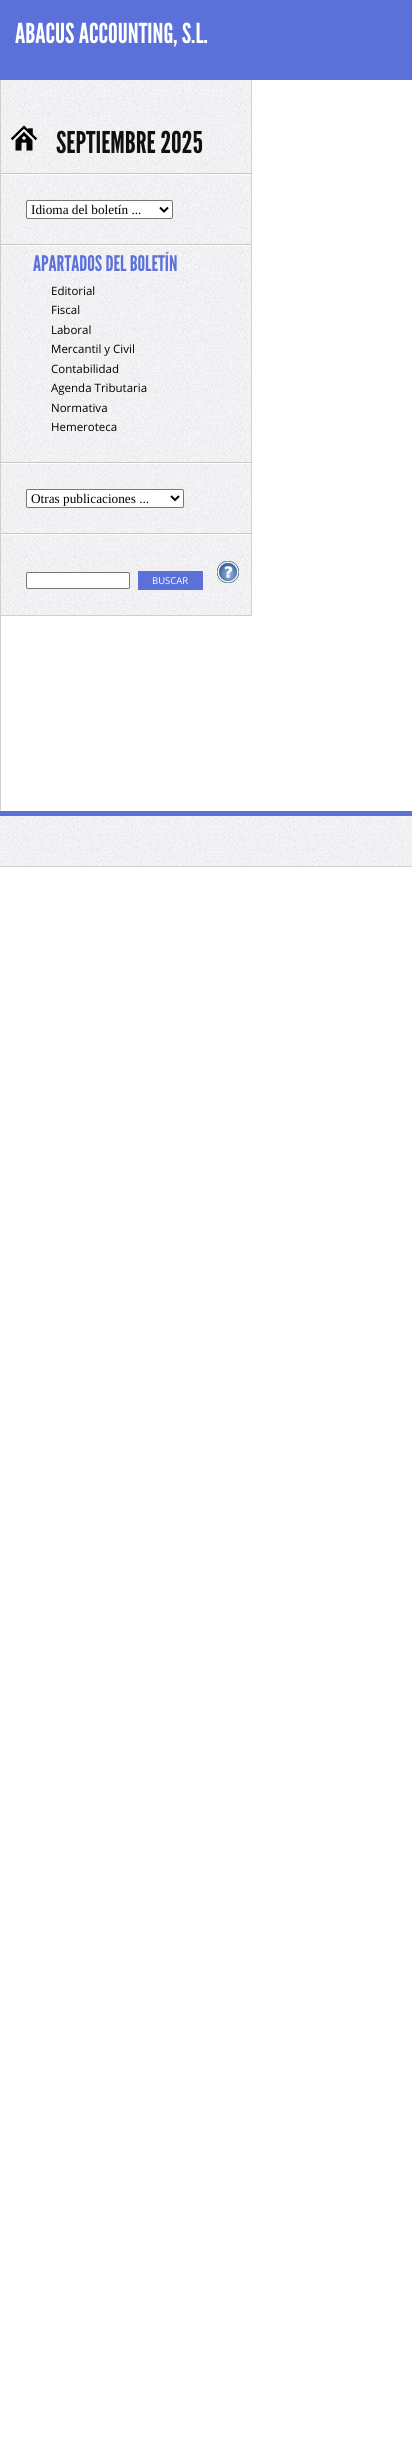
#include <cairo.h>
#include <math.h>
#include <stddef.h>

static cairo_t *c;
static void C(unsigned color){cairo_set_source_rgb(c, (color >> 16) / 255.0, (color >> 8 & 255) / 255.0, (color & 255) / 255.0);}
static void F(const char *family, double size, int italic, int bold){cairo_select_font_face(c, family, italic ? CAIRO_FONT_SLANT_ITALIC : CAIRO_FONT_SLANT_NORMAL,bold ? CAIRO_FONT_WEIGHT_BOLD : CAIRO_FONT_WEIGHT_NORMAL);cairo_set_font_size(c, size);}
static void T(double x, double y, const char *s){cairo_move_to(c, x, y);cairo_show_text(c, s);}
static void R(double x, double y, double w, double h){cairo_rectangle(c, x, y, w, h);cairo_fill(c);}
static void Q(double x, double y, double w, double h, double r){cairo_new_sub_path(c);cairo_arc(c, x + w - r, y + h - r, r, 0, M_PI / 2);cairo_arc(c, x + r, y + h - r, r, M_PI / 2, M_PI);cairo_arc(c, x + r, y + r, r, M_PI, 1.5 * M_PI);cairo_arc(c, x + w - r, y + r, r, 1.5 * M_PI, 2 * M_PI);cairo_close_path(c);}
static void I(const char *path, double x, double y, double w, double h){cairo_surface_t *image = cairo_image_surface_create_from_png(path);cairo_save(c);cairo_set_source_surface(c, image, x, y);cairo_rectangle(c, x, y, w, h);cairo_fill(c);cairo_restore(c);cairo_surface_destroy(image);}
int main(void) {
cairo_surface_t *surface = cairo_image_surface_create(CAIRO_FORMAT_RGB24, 412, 2457);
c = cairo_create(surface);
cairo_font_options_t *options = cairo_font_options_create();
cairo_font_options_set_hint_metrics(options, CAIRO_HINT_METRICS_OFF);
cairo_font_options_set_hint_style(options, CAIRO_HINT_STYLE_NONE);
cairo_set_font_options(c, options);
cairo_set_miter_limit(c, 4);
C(0xffffff);
cairo_paint(c);
C(0x5b70d8);
R(0,0,412,80);
F("League Gothic",27.5,0,0);
C(0xffffff);
T(15,43,"ABACUS ACCOUNTING, S.L.");
C(0xcfcfcf);
R(0,80,1,731);
I("1.png",1,80,250,535);
R(251,80,1,536);
R(1,615,251,1);
I("2.png",10,125,28,26);
F("League Gothic",30,0,0);
C(0x101010);
T(56,153,"SEPTIEMBRE 2025");
C(0xc6c7c7);
R(1,173,250,1);
C(0xffffff);
R(1,174,250,1);
Q(26.5,200.5,146,18,1.5);
cairo_fill_preserve(c);
C(0x767676);
cairo_set_line_width(c,1);
cairo_stroke(c);
cairo_new_path(c);
cairo_move_to(c,160,207.5);
cairo_line_to(c,164,211.5);
cairo_line_to(c,168,207.5);
C(0x000000);
cairo_set_line_width(c,2);
cairo_stroke(c);
F("Liberation Serif",13.25,0,0);
T(31,214,"Idioma del boletín ...");
C(0xc6c7c7);
R(1,244,250,1);
C(0xffffff);
R(1,245,250,1);
F("League Gothic",21.5,0,0);
C(0x5b70d8);
T(33,271,"APARTADOS DEL BOLETÍN");
F("Open Sans",11.5,0,0);
C(0x000000);
T(51,295,"Editorial");
T(51,314,"Fiscal");
T(51,334,"Laboral");
T(51,353,"Mercantil y Civil");
T(51,373,"Contabilidad");
T(51,392,"Agenda Tributaria");
T(51,412,"Normativa");
T(51,431,"Hemeroteca");
C(0xc6c7c7);
R(1,462,250,1);
C(0xffffff);
R(1,463,250,1);
Q(26.5,489.5,157,18,1.5);
cairo_fill_preserve(c);
C(0x767676);
cairo_set_line_width(c,1);
cairo_stroke(c);
cairo_new_path(c);
cairo_move_to(c,171,496);
cairo_line_to(c,175,500);
cairo_line_to(c,179,496);
C(0x000000);
cairo_set_line_width(c,2);
cairo_stroke(c);
F("Liberation Serif",13.25,0,0);
T(31,503,"Otras publicaciones ...");
C(0xc6c7c7);
R(1,533,250,1);
C(0xffffff);
R(1,534,250,1);
Q(26.5,572.5,103,16,1.5);
cairo_fill_preserve(c);
C(0x767676);
cairo_set_line_width(c,1);
cairo_stroke(c);
C(0x5b70d8);
R(138,571,65,19);
F("Open Sans",9.5,0,0);
C(0xffffff);
T(152,584,"BUSCAR");
I("3.png",217,561,22,22);
I("4.png",0,816,412,50);
C(0x5b70d8);
R(0,811,412,5);
C(0xcfcfcf);
R(0,866,412,1);
cairo_surface_write_to_png(surface, "o.png");
cairo_font_options_destroy(options);
cairo_destroy(c);
cairo_surface_destroy(surface);
return 0;
}
